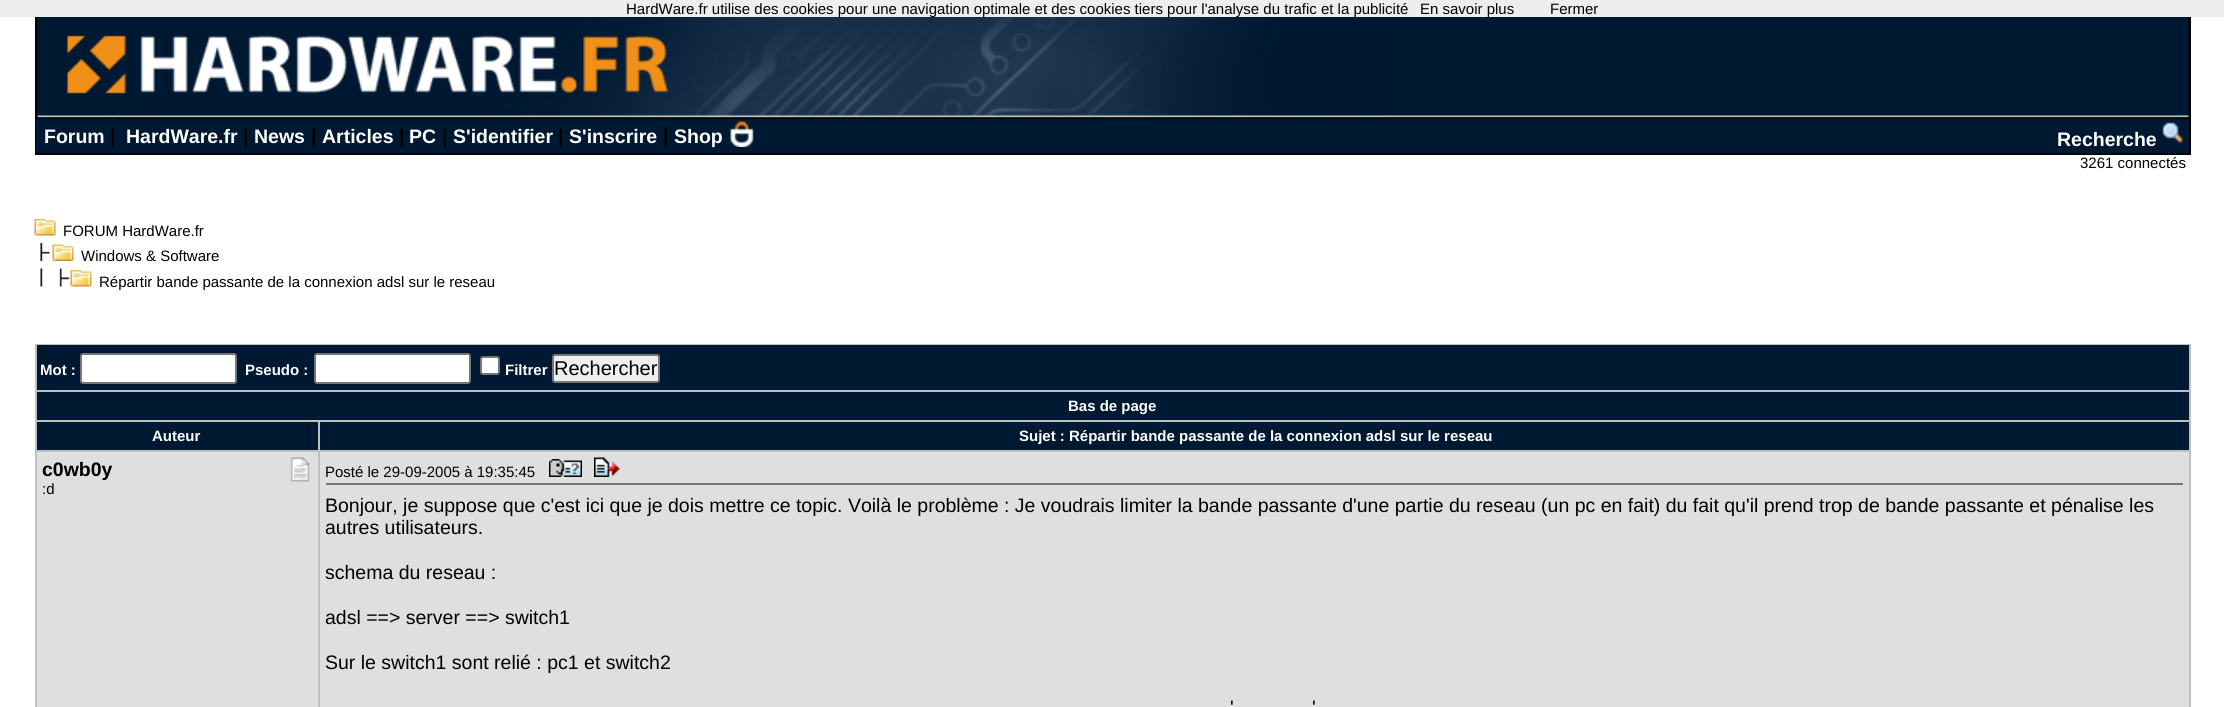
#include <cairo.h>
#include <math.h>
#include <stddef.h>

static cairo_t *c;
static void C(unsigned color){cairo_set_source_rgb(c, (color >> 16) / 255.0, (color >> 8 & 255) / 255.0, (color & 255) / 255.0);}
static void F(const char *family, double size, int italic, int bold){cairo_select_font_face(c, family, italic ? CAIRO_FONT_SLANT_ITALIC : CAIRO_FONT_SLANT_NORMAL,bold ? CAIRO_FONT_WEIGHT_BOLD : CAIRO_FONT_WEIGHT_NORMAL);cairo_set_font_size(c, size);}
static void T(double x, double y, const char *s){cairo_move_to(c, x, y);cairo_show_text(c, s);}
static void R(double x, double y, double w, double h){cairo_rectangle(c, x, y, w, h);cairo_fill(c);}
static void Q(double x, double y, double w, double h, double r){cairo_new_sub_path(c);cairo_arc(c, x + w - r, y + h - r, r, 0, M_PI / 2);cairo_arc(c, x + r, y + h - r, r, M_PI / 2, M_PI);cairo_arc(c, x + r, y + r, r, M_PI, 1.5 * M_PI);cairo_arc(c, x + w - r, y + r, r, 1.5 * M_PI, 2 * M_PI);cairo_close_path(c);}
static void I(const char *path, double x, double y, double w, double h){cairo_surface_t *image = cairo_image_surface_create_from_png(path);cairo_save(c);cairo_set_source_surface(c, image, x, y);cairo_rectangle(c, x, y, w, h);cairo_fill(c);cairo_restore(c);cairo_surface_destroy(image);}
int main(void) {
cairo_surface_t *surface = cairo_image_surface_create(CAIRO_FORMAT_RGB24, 2224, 707);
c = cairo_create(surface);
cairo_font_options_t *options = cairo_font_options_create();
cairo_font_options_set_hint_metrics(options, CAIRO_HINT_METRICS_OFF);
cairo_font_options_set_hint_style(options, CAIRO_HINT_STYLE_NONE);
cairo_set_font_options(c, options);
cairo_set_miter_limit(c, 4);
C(0xffffff);
cairo_paint(c);
C(0x000000);
R(2189,12,2,143);
C(0xeeeeee);
R(0,0,2224,17);
C(0x000000);
R(35,17,2154,138);
I("1.png",1386,17,803,101);
I("2.png",36,17,1350,102);
F("Liberation Sans",15,0,0);
T(626,14,"HardWare.fr utilise des cookies pour une navigation optimale et des cookies tiers pour l'analyse du trafic et la publicité");
T(1420,14,"En savoir plus");
T(1550,14,"Fermer");
C(0x001932);
R(36,119,2153,34);
F("Liberation Sans",19.5,0,1);
C(0xffffff);
T(44,143,"Forum");
C(0x000000);
T(110,143,"|");
C(0xffffff);
T(126,143,"HardWare.fr");
C(0x000000);
T(243,143,"|");
C(0xffffff);
T(254,143,"News");
C(0x000000);
T(311,143,"|");
C(0xffffff);
T(322,143,"Articles");
C(0x000000);
T(399,143,"|");
C(0xffffff);
T(409,143,"PC");
C(0x000000);
T(442,143,"|");
C(0xffffff);
T(453,143,"S'identifier");
C(0x000000);
T(558,143,"|");
C(0xffffff);
T(569,143,"S'inscrire");
C(0x000000);
T(663,143,"|");
C(0xffffff);
T(674,143,"Shop");
I("3.png",730,121,24,26);
T(2057,146,"Recherche");
I("4.png",2162,122,21,22);
F("Liberation Sans",15,0,0);
C(0x000000);
T(2080,168,"3261 connectés");
I("5.png",34,219,22,17);
T(63,236,"FORUM HardWare.fr");
I("6.png",40,243,10,18);
I("7.png",52,244,22,17);
T(81,261,"Windows & Software");
I("8.png",40,268,30,19);
I("5.png",70,270,22,17);
T(99,287,"Répartir bande passante de la connexion adsl sur le reseau");
C(0xc0c0c0);
R(35,344,2155,1);
R(2189,344,2,363);
C(0x001932);
R(37,345,2152,45);
C(0xc0c0c0);
R(35,390,2154,2);
R(35,345,2,47);
F("Liberation Sans",15,0,1);
C(0xffffff);
T(40,375,"Mot :");
Q(81,354,155,29,2);
cairo_fill_preserve(c);
C(0x767676);
cairo_stroke(c);
C(0xffffff);
T(245,375,"Pseudo :");
Q(315,354,155,29,2);
cairo_fill_preserve(c);
C(0x767676);
cairo_stroke(c);
C(0xffffff);
Q(481,357,18,17,2);
cairo_fill_preserve(c);
C(0x767676);
cairo_stroke(c);
C(0xffffff);
T(505,375,"Filtrer");
C(0xefefef);
Q(553,355,106,27,2);
cairo_fill_preserve(c);
C(0x767676);
cairo_stroke(c);
F("Liberation Sans",20,0,0);
C(0x000000);
T(554,375,"Rechercher");
C(0x001932);
R(37,392,2152,28);
C(0xc0c0c0);
R(35,420,2154,2);
R(35,392,2,30);
F("Liberation Sans",15,0,1);
C(0xffffff);
T(1068,411,"Bas de page");
C(0x001932);
R(37,422,2152,28);
C(0xc0c0c0);
R(35,450,2154,2);
R(35,422,2,285);
C(0xffffff);
T(152,441,"Auteur");
C(0xc0c0c0);
R(318,422,2,30);
C(0xffffff);
T(1019,441,"Sujet : Répartir bande passante de la connexion adsl sur le reseau");
C(0xdedfdf);
R(37,452,2152,255);
F("Liberation Sans",19.5,0,1);
C(0x000000);
T(42,476,"c0wb0y");
I("9.png",290,457,20,25);
F("Liberation Sans",15,0,0);
T(42,494,":d");
C(0xc0c0c0);
R(318,452,2,255);
C(0x777777);
R(326,483,1857,2);
C(0x000000);
T(325,477,"Posté le 29-09-2005 à 19:35:45");
I("10.png",549,459,33,18);
I("11.png",594,457,26,20);
F("Liberation Sans",19.5,0,0);
T(325,512,"Bonjour, je suppose que c'est ici que je dois mettre ce topic. Voilà le problème : Je voudrais limiter la bande passante d'une partie du reseau (un pc en fait) du fait qu'il prend trop de bande passante et pénalise les");
T(325,534,"autres utilisateurs.");
T(325,579,"schema du reseau :");
T(325,624,"adsl ==> server ==> switch1");
T(325,669,"Sur le switch1 sont relié : pc1 et switch2");
T(1230,714,"'");
T(1312,714,"'");
cairo_surface_write_to_png(surface, "o.png");
cairo_font_options_destroy(options);
cairo_destroy(c);
cairo_surface_destroy(surface);
return 0;
}
